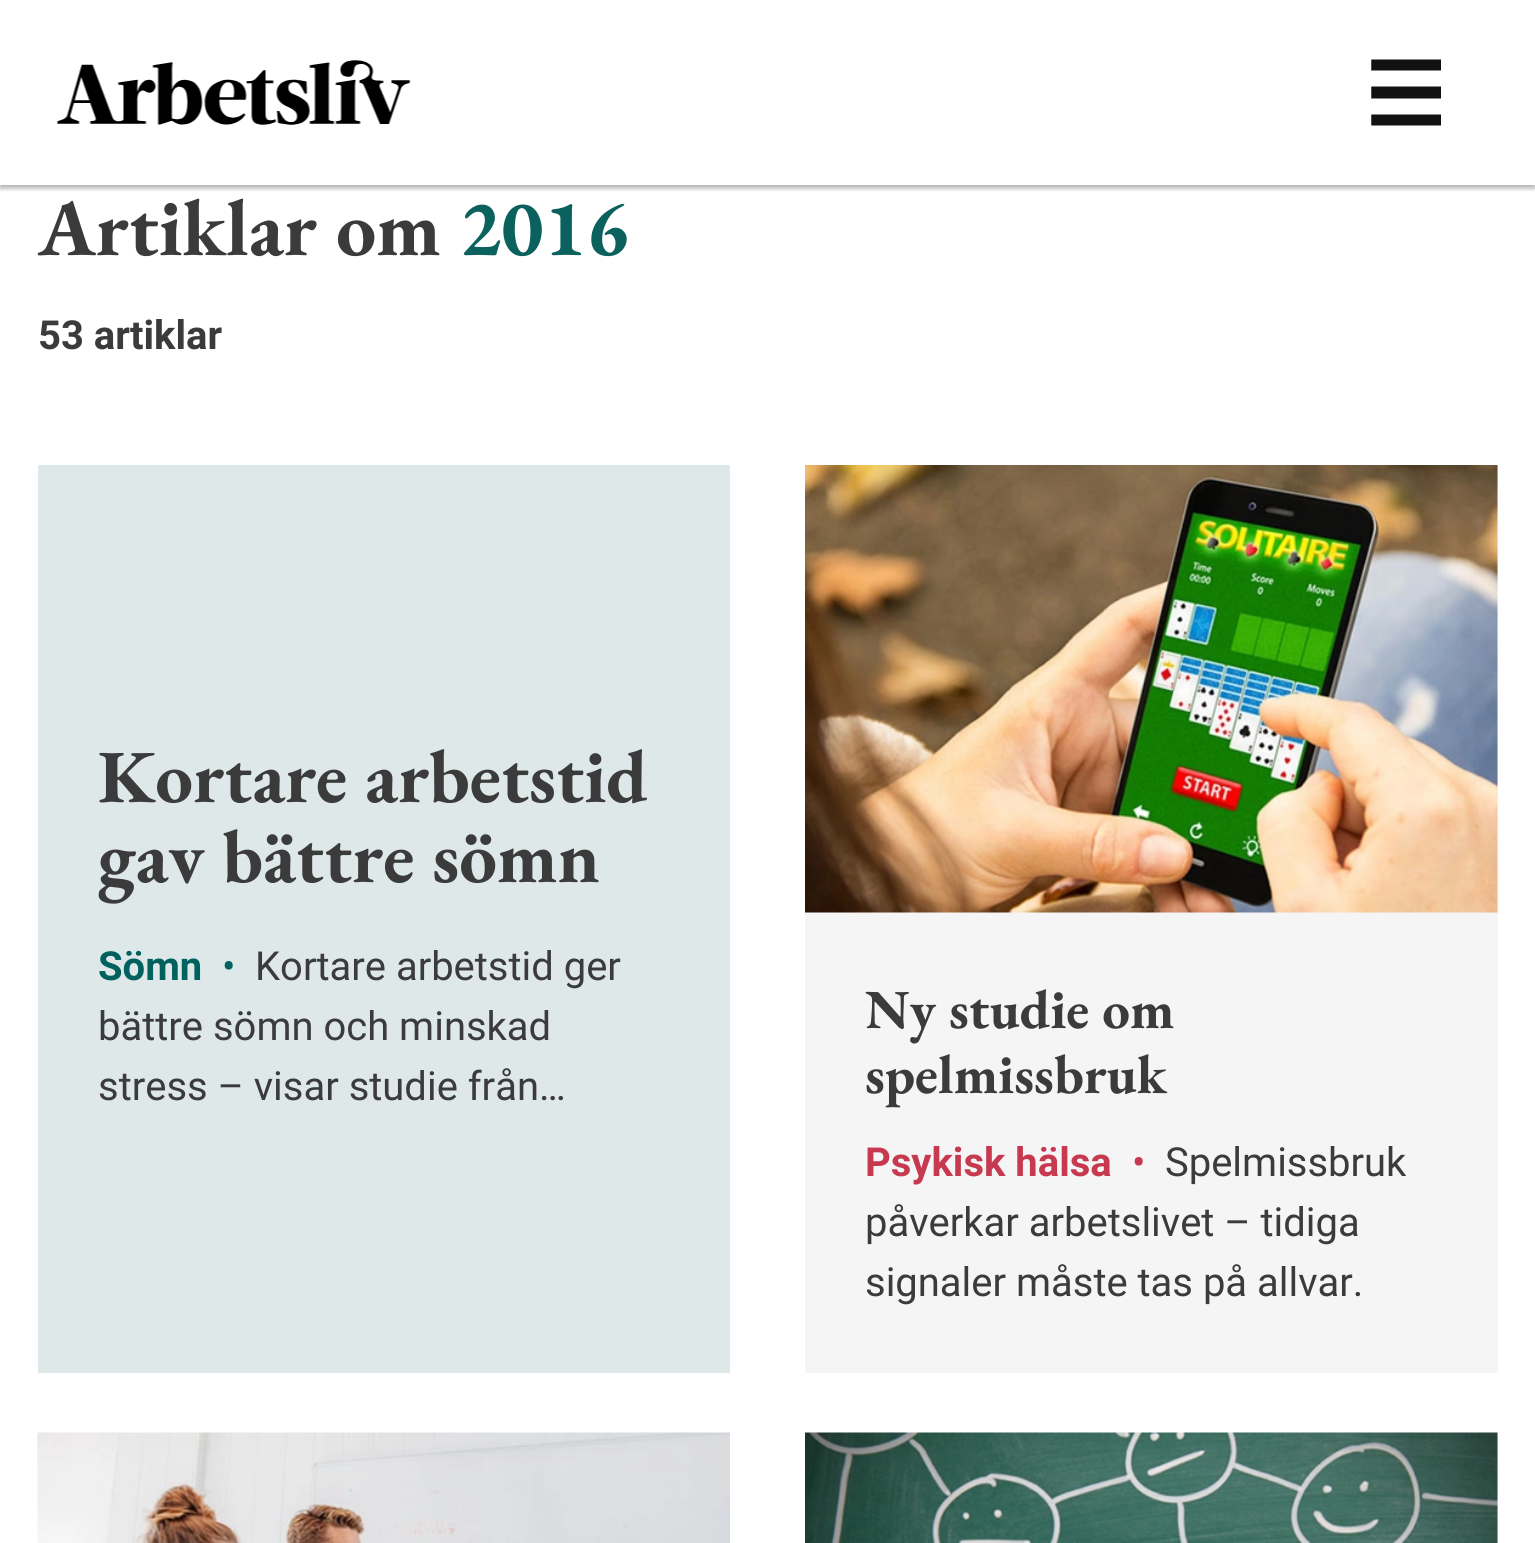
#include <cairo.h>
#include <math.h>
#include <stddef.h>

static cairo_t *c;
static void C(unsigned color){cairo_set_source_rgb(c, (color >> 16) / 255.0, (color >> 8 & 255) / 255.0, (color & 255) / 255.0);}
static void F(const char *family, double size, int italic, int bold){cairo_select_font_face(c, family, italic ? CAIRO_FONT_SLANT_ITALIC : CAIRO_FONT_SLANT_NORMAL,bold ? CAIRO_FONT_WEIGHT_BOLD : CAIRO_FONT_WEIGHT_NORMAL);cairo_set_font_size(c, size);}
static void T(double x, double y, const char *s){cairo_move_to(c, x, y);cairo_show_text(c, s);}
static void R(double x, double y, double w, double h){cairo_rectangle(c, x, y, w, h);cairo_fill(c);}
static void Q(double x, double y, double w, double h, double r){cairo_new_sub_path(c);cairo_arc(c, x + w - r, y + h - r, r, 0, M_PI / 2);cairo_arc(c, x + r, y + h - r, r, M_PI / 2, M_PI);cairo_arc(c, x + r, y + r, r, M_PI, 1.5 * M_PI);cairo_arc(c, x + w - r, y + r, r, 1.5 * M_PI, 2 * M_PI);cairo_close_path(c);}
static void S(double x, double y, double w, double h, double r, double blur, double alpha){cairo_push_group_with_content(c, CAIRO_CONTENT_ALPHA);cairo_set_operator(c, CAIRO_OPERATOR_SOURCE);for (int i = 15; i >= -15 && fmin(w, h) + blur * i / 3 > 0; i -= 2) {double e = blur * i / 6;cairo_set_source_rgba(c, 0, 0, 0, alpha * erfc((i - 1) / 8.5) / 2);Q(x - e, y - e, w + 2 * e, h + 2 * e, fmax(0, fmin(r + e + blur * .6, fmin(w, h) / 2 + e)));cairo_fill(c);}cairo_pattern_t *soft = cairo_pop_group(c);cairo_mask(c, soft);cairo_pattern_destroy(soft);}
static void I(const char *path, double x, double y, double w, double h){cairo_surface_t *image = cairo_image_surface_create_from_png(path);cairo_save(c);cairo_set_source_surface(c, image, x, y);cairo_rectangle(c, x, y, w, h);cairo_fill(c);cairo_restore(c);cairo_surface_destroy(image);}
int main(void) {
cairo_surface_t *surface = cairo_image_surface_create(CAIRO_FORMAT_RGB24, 1535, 1543);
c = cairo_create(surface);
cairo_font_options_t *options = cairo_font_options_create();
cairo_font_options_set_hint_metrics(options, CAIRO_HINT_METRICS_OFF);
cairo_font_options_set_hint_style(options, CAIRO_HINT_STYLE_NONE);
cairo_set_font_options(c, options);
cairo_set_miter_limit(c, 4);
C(0xffffff);
cairo_paint(c);
cairo_save(c);
cairo_rectangle(c,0,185,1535,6);
cairo_clip(c);
C(0x000000);
S(0,3,1535,185,0,2.5,.24);
cairo_restore(c);
cairo_save(c);
cairo_rectangle(c,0,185,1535,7);
cairo_clip(c);
C(0x000000);
S(0,3,1535,185,0,4,.12);
cairo_restore(c);
I("1.png",57,60,354,65);
I("2.png",1371,59,70,67);
F("EB Garamond",80,0,1);
C(0x3b3b3b);
T(38,255,"Artiklar om");
C(0x0a615e);
T(459,255,"2016");
F("Roboto",40,0,1);
C(0x3b3b3b);
T(38,349,"53 artiklar");
C(0xdee8e8);
R(38,465,692,908);
F("EB Garamond",75,0,1);
C(0x3b3b3b);
T(98,802,"Kortare arbetstid");
T(98,882,"gav bättre sömn");
F("Roboto",40,0,1);
C(0x00615e);
T(98,980,"Sömn");
F("Roboto",40,0,0);
T(222,980,"•");
C(0x3b3b3b);
T(255,980,"Kortare arbetstid ger");
T(98,1040,"bättre sömn och minskad");
T(98,1100,"stress – visar studie från…");
C(0xf5f5f5);
R(805,465,693,908);
I("3.png",805,465,693,448);
F("EB Garamond",55,0,1);
C(0x3b3b3b);
T(865,1028,"Ny studie om");
T(865,1093,"spelmissbruk");
F("Roboto",40,0,1);
C(0xc6394e);
T(865,1176,"Psykisk hälsa");
F("Roboto",40,0,0);
T(1132,1176,"•");
C(0x3b3b3b);
T(1165,1176,"Spelmissbruk");
T(865,1236,"påverkar arbetslivet – tidiga");
T(865,1296,"signaler måste tas på allvar.");
I("4.png",37,1432,693,111);
C(0xf5f5f5);
R(1497,1433,1,110);
I("5.png",805,1432,693,111);
cairo_surface_write_to_png(surface, "o.png");
cairo_font_options_destroy(options);
cairo_destroy(c);
cairo_surface_destroy(surface);
return 0;
}
